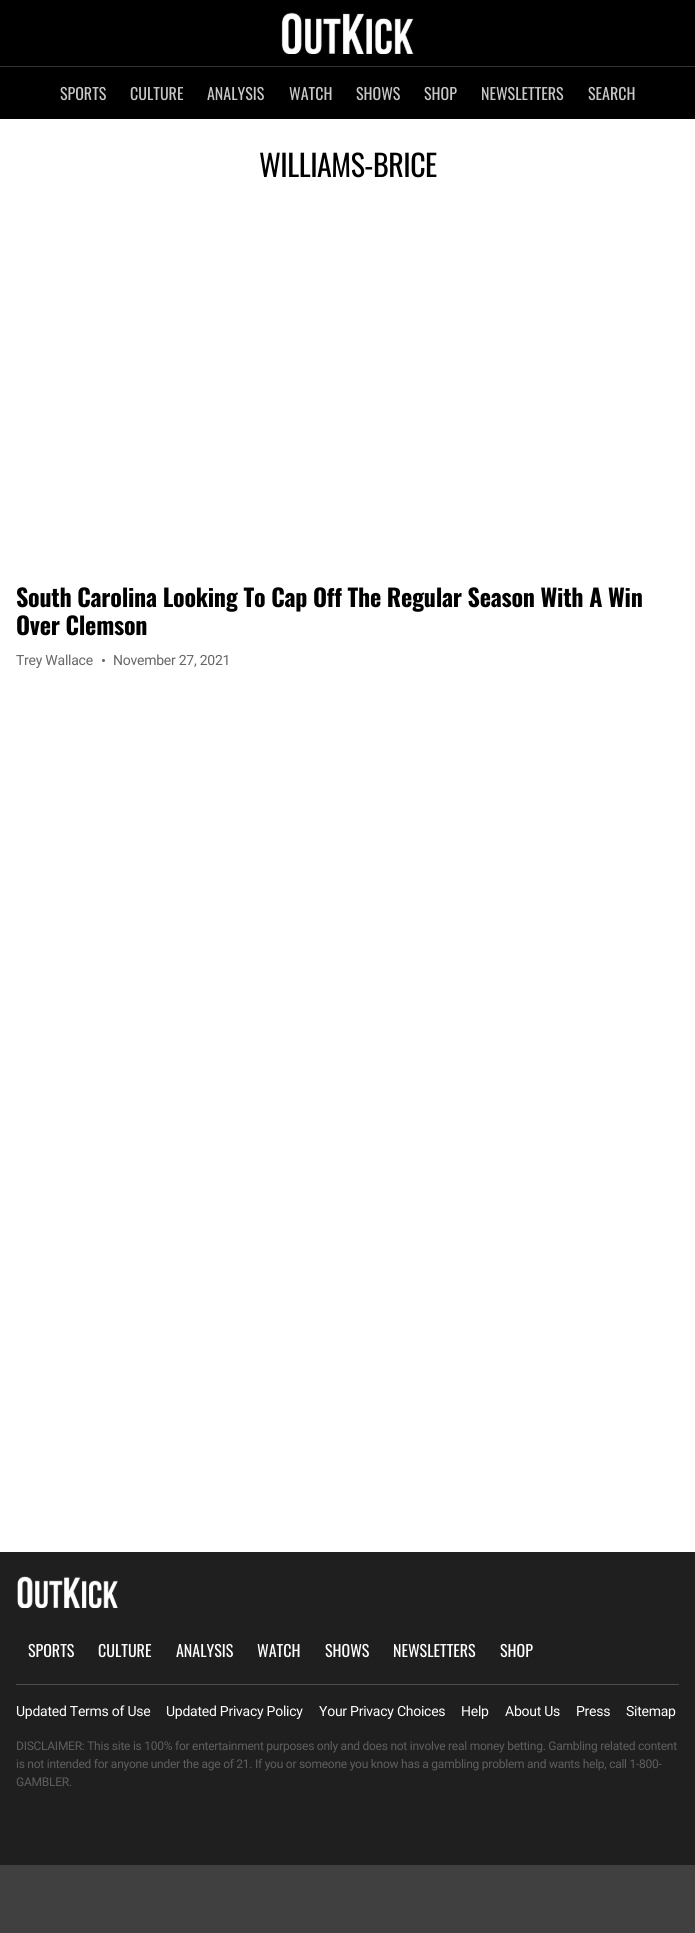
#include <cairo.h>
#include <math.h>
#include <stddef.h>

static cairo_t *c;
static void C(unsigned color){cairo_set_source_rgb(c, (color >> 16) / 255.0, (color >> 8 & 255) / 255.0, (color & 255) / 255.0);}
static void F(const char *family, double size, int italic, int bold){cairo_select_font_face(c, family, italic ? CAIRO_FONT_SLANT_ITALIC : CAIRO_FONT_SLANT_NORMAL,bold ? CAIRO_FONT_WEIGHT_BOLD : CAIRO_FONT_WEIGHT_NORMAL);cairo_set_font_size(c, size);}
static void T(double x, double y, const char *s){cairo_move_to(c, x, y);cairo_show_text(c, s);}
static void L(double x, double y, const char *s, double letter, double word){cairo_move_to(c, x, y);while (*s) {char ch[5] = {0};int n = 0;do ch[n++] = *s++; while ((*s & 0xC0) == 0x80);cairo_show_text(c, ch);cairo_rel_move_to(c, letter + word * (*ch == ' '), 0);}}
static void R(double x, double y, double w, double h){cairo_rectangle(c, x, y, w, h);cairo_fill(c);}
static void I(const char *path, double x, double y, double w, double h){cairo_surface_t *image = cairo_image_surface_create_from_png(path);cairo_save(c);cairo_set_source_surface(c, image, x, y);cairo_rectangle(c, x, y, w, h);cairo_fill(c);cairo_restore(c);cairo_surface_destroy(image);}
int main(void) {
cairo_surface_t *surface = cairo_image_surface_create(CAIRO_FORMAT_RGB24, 695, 1933);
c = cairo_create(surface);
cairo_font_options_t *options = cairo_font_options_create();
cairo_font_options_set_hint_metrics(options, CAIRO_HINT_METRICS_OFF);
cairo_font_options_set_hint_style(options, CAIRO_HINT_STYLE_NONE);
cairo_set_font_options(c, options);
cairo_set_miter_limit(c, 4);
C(0xffffff);
cairo_paint(c);
C(0x000000);
R(0,0,695,119);
I("1.png",281,12,133,42);
C(0x333333);
R(0,66,695,1);
F("Oswald",16,0,0);
C(0xc7c7c7);
T(60,100,"SPORTS");
T(130,100,"CULTURE");
T(207,100,"ANALYSIS");
T(289,100,"WATCH");
T(356,100,"SHOWS");
T(424,100,"SHOP");
T(481,100,"NEWSLETTERS");
T(588,100,"SEARCH");
F("Oswald",30,0,0);
C(0x000000);
L(259,177,"WILLIAMS-BRICE",-.5,0);
F("Oswald",24,0,1);
L(16,607,"South Carolina Looking To Cap Off The Regular Season With A Win",-.25,0);
L(16,635,"Over Clemson",-.25,0);
F("Roboto",14,0,0);
C(0x666666);
L(16,665,"Trey Wallace",-.25,0);
cairo_new_path(c);
cairo_arc(c,103.5,660.5,1.5,0,2 * M_PI);
cairo_fill(c);
L(113,665,"November 27, 2021",-.25,0);
C(0x1f1f1f);
R(0,1552,695,313);
I("2.png",17,1576,101,32);
F("Oswald",16,0,0);
C(0xffffff);
T(28,1657,"SPORTS");
T(98,1657,"CULTURE");
T(176,1657,"ANALYSIS");
T(257,1657,"WATCH");
T(325,1657,"SHOWS");
T(393,1657,"NEWSLETTERS");
T(500,1657,"SHOP");
C(0x4c4c4c);
R(16,1684,663,1);
F("Roboto",14,0,0);
C(0xffffff);
L(16,1716,"Updated Terms of Use",-.25,0);
L(166,1716,"Updated Privacy Policy",-.25,0);
L(319,1716,"Your Privacy Choices",-.25,0);
L(461,1716,"Help",-.25,0);
L(505,1716,"About Us",-.25,0);
L(576,1716,"Press",-.25,0);
L(626,1716,"Sitemap",-.25,0);
F("Roboto",12,0,0);
C(0x5e5e5e);
L(16,1750,"DISCLAIMER: This site is 100% for entertainment purposes only and does not involve real money betting. Gambling related content",-.25,0);
L(16,1768,"is not intended for anyone under the age of 21. If you or someone you know has a gambling problem and wants help, call 1-800-",-.25,0);
L(16,1786,"GAMBLER.",-.25,0);
C(0x404040);
R(0,1865,695,68);
cairo_surface_write_to_png(surface, "o.png");
cairo_font_options_destroy(options);
cairo_destroy(c);
cairo_surface_destroy(surface);
return 0;
}
